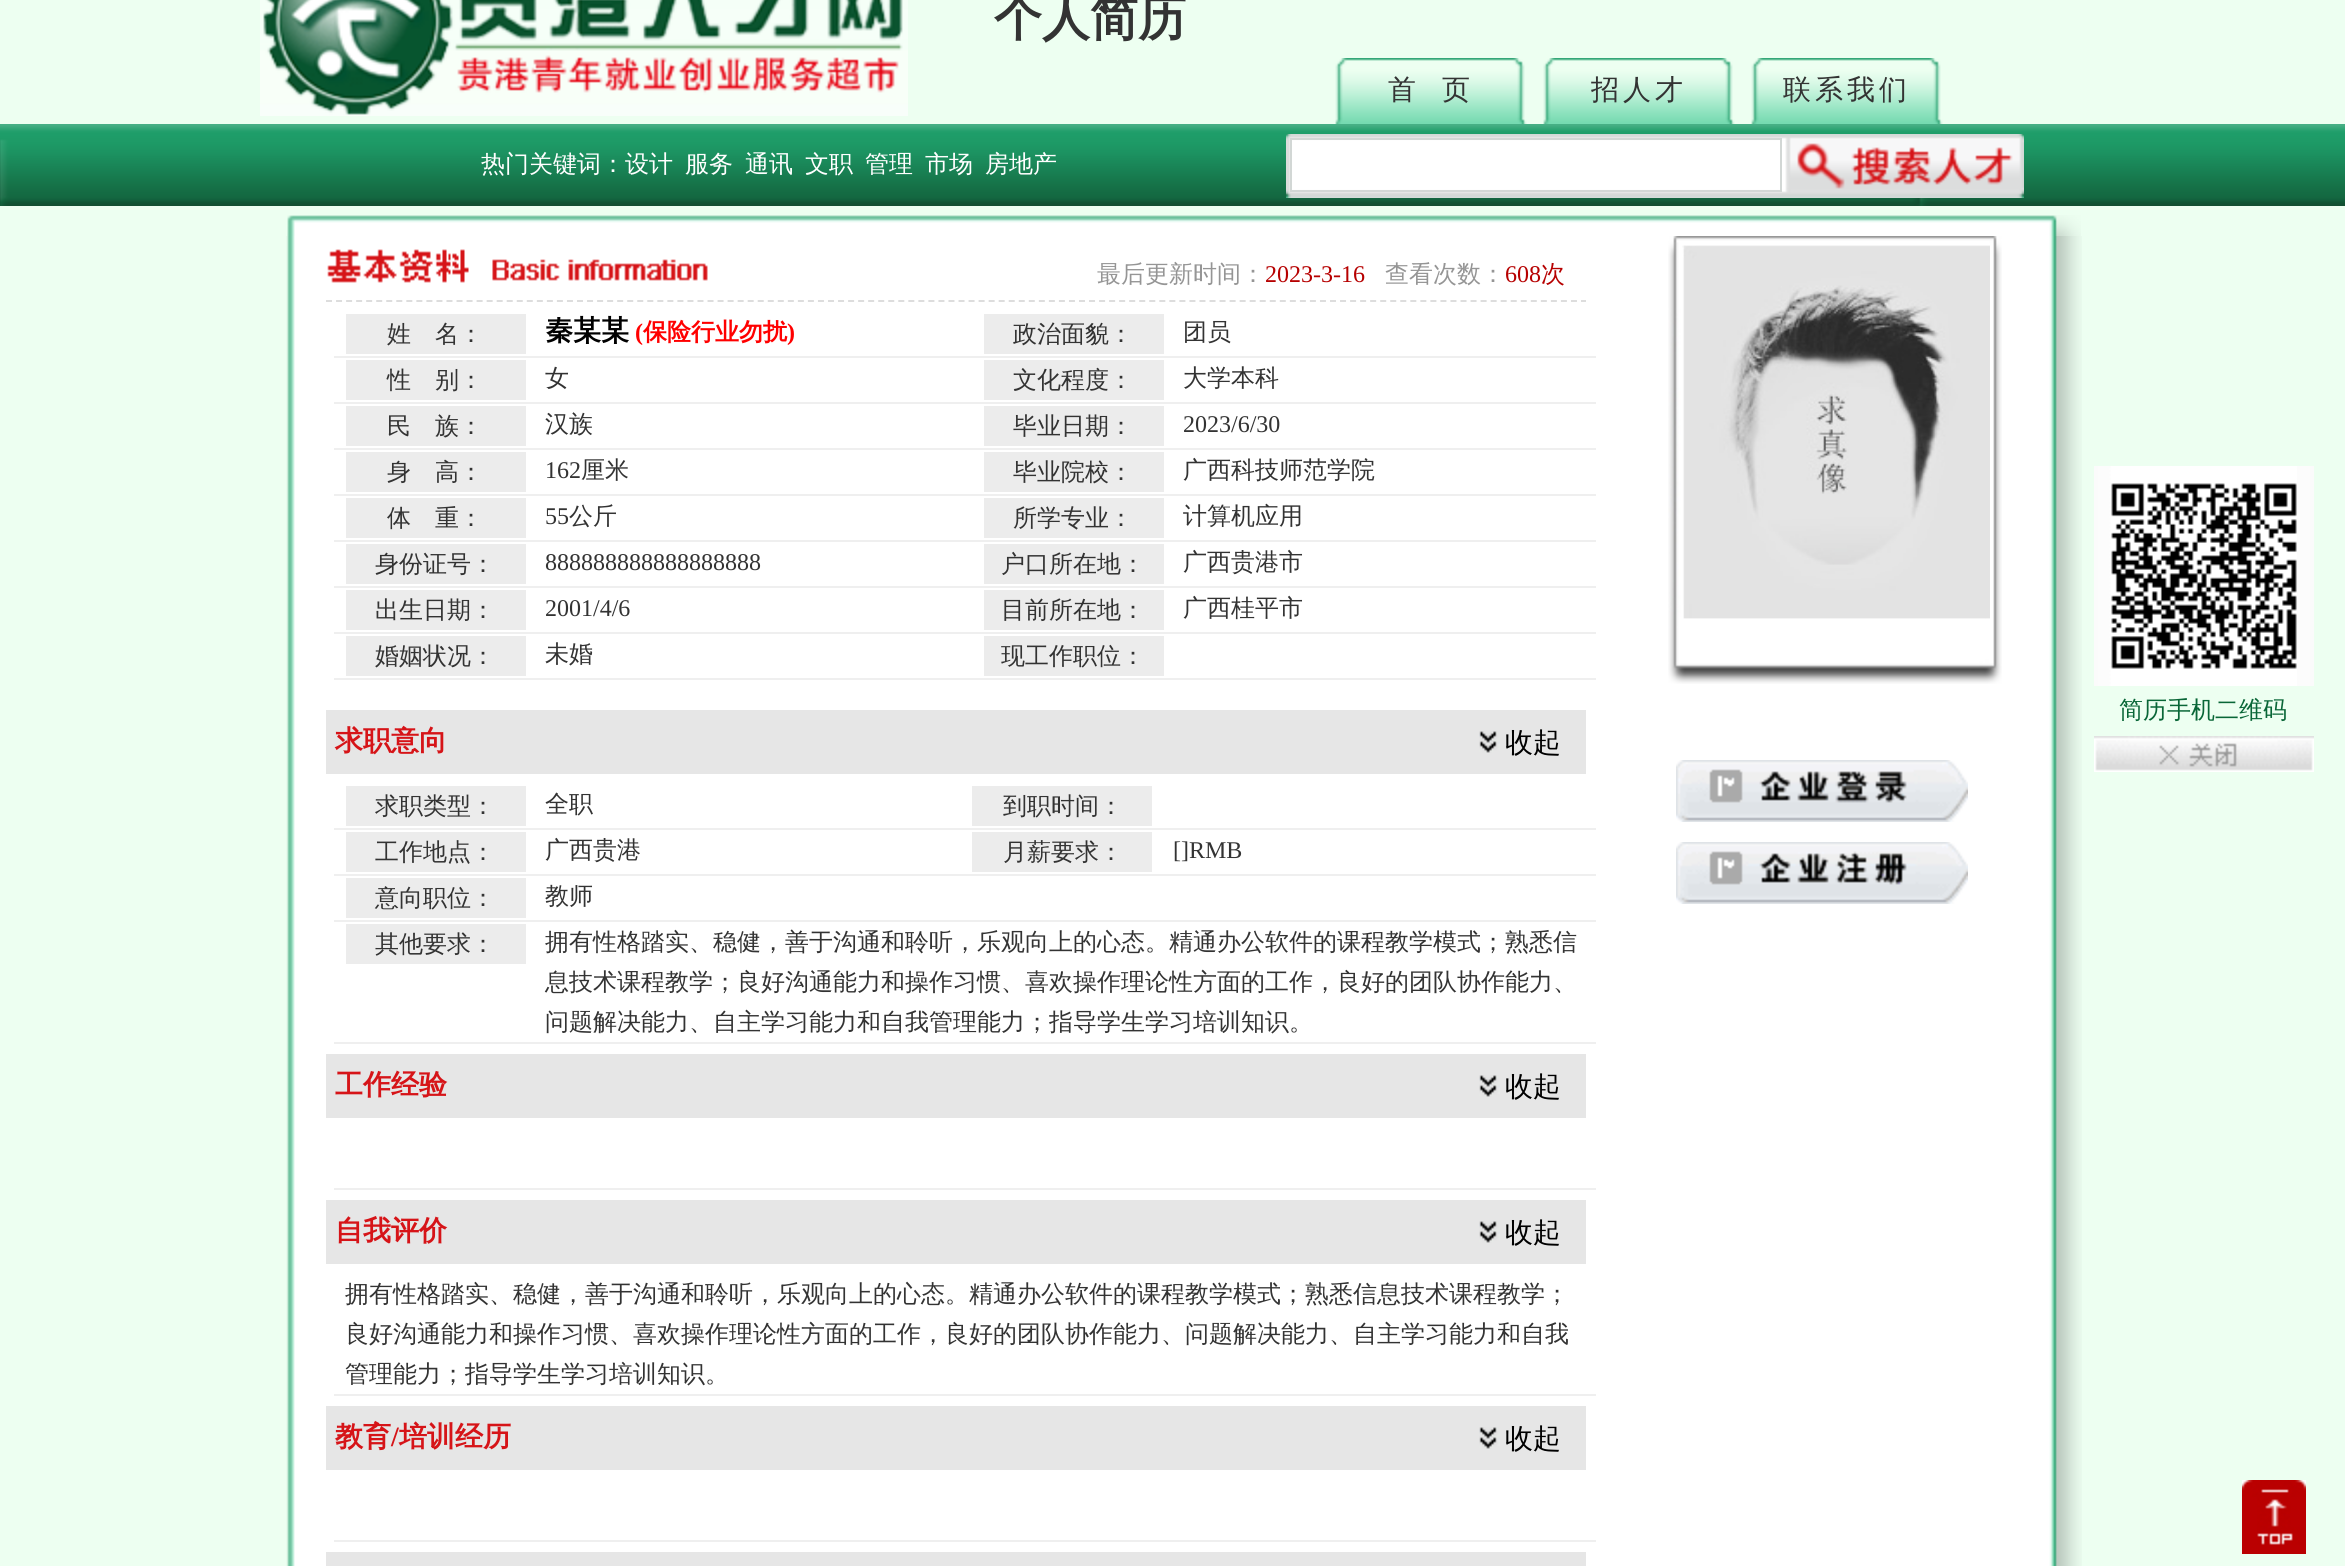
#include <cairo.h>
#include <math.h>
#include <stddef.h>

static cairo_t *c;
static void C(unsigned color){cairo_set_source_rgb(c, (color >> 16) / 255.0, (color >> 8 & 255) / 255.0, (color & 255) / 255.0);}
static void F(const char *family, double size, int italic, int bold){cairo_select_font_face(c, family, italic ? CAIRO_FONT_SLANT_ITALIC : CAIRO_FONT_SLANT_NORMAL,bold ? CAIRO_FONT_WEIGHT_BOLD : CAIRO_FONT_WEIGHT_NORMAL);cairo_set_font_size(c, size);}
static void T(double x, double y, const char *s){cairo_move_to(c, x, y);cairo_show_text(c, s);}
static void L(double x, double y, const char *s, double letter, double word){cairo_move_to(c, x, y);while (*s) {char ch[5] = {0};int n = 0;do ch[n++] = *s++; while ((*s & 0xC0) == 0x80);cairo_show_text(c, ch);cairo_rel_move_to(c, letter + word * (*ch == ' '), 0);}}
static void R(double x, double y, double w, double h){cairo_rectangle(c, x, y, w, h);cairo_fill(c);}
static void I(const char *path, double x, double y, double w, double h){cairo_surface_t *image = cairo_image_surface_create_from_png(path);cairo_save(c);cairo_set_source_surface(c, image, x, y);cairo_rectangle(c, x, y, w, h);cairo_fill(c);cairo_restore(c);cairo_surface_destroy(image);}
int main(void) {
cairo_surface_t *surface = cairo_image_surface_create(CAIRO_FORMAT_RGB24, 2345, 1566);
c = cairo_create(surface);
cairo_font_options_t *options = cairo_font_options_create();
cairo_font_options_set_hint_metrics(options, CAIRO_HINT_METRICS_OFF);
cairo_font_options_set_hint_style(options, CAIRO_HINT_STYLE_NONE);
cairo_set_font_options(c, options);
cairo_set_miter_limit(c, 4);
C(0xedfff1);
cairo_paint(c);
I("1.png",260,0,648,116);
F("WenQuanYi Zen Hei",48,0,1);
C(0x333333);
T(994,35,"个人简历");
I("2.png",1335,58,192,66);
F("WenQuanYi Zen Hei Medium",28,0,0);
L(1388,99,"首",4,0);
L(1442,99,"页",4,0);
I("2.png",1543,58,192,66);
L(1591,99,"招人才",4,0);
I("2.png",1751,58,192,66);
L(1783,99,"联系我们",4,0);
I("3.png",0,124,2345,82);
F("WenQuanYi Zen Hei Medium",24,0,0);
C(0xffffff);
T(481,172,"热门关键词：设计");
T(685,172,"服务");
T(745,172,"通讯");
T(805,172,"文职");
T(865,172,"管理");
T(925,172,"市场");
T(985,172,"房地产");
I("4.png",1286,134,738,64);
cairo_rectangle(c,1291,139,490,52);
C(0xd2d7d5);
cairo_stroke(c);
I("5.png",287,215,1794,21);
I("6.png",286,236,1796,1330);
I("7.png",327,249,381,34);
cairo_new_path(c);
cairo_move_to(c,326,301);
cairo_line_to(c,1586,301);
C(0xdddddd);
cairo_set_dash(c,(double[]){6,4.04},2,0);
cairo_stroke(c);
C(0x959595);
T(1097,282,"最后更新时间：");
F("Liberation Serif",24,0,0);
C(0xb60000);
T(1265,282,"2023-3-16");
F("WenQuanYi Zen Hei Medium",24,0,0);
C(0x959595);
T(1385,282,"查看次数：");
F("Liberation Serif",24,0,0);
C(0xb60000);
T(1505,282,"608");
F("WenQuanYi Zen Hei Medium",24,0,0);
T(1541,282,"次");
C(0xececec);
R(346,314,180,40);
C(0x333333);
T(387,342,"姓");
T(435,342,"名：");
F("WenQuanYi Zen Hei",28,0,1);
C(0x000000);
T(545,340,"秦某某");
F("Liberation Serif",24,0,1);
C(0xff0000);
T(635,340,"(");
F("WenQuanYi Zen Hei",24,0,1);
T(643,340,"保险行业勿扰");
F("Liberation Serif",24,0,1);
T(787,340,")");
C(0xececec);
R(984,314,180,40);
F("WenQuanYi Zen Hei Medium",24,0,0);
C(0x333333);
T(1013,342,"政治面貌：");
C(0xefefef);
R(334,356,1262,2);
C(0x333333);
T(1183,340,"团员");
C(0xececec);
R(346,360,180,40);
C(0x333333);
T(387,388,"性");
T(435,388,"别：");
T(545,386,"女");
C(0xececec);
R(984,360,180,40);
C(0x333333);
T(1013,388,"文化程度：");
C(0xefefef);
R(334,402,1262,2);
C(0x333333);
T(1183,386,"大学本科");
C(0xececec);
R(346,406,180,40);
C(0x333333);
T(387,434,"民");
T(435,434,"族：");
T(545,432,"汉族");
C(0xececec);
R(984,406,180,40);
C(0x333333);
T(1013,434,"毕业日期：");
C(0xefefef);
R(334,448,1262,2);
F("Liberation Serif",24,0,0);
C(0x333333);
T(1183,432,"2023/6/30");
C(0xececec);
R(346,452,180,40);
F("WenQuanYi Zen Hei Medium",24,0,0);
C(0x333333);
T(387,480,"身");
T(435,480,"高：");
F("Liberation Serif",24,0,0);
T(545,478,"162");
F("WenQuanYi Zen Hei Medium",24,0,0);
T(581,478,"厘米");
C(0xececec);
R(984,452,180,40);
C(0x333333);
T(1013,480,"毕业院校：");
C(0xefefef);
R(334,494,1262,2);
C(0x333333);
T(1183,478,"广西科技师范学院");
C(0xececec);
R(346,498,180,40);
C(0x333333);
T(387,526,"体");
T(435,526,"重：");
F("Liberation Serif",24,0,0);
T(545,524,"55");
F("WenQuanYi Zen Hei Medium",24,0,0);
T(569,524,"公斤");
C(0xececec);
R(984,498,180,40);
C(0x333333);
T(1013,526,"所学专业：");
C(0xefefef);
R(334,540,1262,2);
C(0x333333);
T(1183,524,"计算机应用");
C(0xececec);
R(346,544,180,40);
C(0x333333);
T(375,572,"身份证号：");
F("Liberation Serif",24,0,0);
T(545,570,"888888888888888888");
C(0xececec);
R(984,544,180,40);
F("WenQuanYi Zen Hei Medium",24,0,0);
C(0x333333);
T(1001,572,"户口所在地：");
C(0xefefef);
R(334,586,1262,2);
C(0x333333);
T(1183,570,"广西贵港市");
C(0xececec);
R(346,590,180,40);
C(0x333333);
T(375,618,"出生日期：");
F("Liberation Serif",24,0,0);
T(545,616,"2001/4/6");
C(0xececec);
R(984,590,180,40);
F("WenQuanYi Zen Hei Medium",24,0,0);
C(0x333333);
T(1001,618,"目前所在地：");
C(0xefefef);
R(334,632,1262,2);
C(0x333333);
T(1183,616,"广西桂平市");
C(0xececec);
R(346,636,180,40);
C(0x333333);
T(375,664,"婚姻状况：");
T(545,662,"未婚");
C(0xececec);
R(984,636,180,40);
C(0x333333);
T(1001,664,"现工作职位：");
C(0xefefef);
R(334,678,1262,2);
C(0xe6e6e6);
R(326,710,1260,64);
F("WenQuanYi Zen Hei",28,0,1);
C(0xd61418);
T(335,750,"求职意向");
I("8.png",1479,731,21,22);
F("WenQuanYi Zen Hei Medium",28,0,0);
C(0x000000);
T(1505,752,"收起");
C(0xececec);
R(346,786,180,40);
F("WenQuanYi Zen Hei Medium",24,0,0);
C(0x333333);
T(375,814,"求职类型：");
T(545,812,"全职");
C(0xececec);
R(972,786,180,40);
C(0x333333);
T(1003,814,"到职时间：");
C(0xefefef);
R(334,828,1262,2);
C(0xececec);
R(346,832,180,40);
C(0x333333);
T(375,860,"工作地点：");
T(545,858,"广西贵港");
C(0xececec);
R(972,832,180,40);
C(0x333333);
T(1003,860,"月薪要求：");
C(0xefefef);
R(334,874,1262,2);
F("Liberation Serif",24,0,0);
C(0x333333);
T(1173,858,"[]RMB");
C(0xececec);
R(346,878,180,40);
F("WenQuanYi Zen Hei Medium",24,0,0);
C(0x333333);
T(375,906,"意向职位：");
C(0xefefef);
R(334,920,1262,2);
C(0x333333);
T(545,904,"教师");
C(0xececec);
R(346,924,180,40);
C(0x333333);
T(375,952,"其他要求：");
C(0xefefef);
R(334,1042,1262,2);
C(0x333333);
T(545,950,"拥有性格踏实、稳健，善于沟通和聆听，乐观向上的心态。精通办公软件的课程教学模式；熟悉信");
T(545,990,"息技术课程教学；良好沟通能力和操作习惯、喜欢操作理论性方面的工作，良好的团队协作能力、");
T(545,1030,"问题解决能力、自主学习能力和自我管理能力；指导学生学习培训知识。");
C(0xe6e6e6);
R(326,1054,1260,64);
F("WenQuanYi Zen Hei",28,0,1);
C(0xd61418);
T(335,1094,"工作经验");
I("8.png",1479,1075,21,22);
F("WenQuanYi Zen Hei Medium",28,0,0);
C(0x000000);
T(1505,1096,"收起");
C(0xefefef);
R(334,1188,1262,2);
C(0xe6e6e6);
R(326,1200,1260,64);
F("WenQuanYi Zen Hei",28,0,1);
C(0xd61418);
T(335,1240,"自我评价");
I("8.png",1479,1221,21,22);
F("WenQuanYi Zen Hei Medium",28,0,0);
C(0x000000);
T(1505,1242,"收起");
C(0xefefef);
R(334,1394,1262,2);
F("WenQuanYi Zen Hei Medium",24,0,0);
C(0x333333);
T(345,1302,"拥有性格踏实、稳健，善于沟通和聆听，乐观向上的心态。精通办公软件的课程教学模式；熟悉信息技术课程教学；");
T(345,1342,"良好沟通能力和操作习惯、喜欢操作理论性方面的工作，良好的团队协作能力、问题解决能力、自主学习能力和自我");
T(345,1382,"管理能力；指导学生学习培训知识。");
C(0xe6e6e6);
R(326,1406,1260,64);
F("WenQuanYi Zen Hei",28,0,1);
C(0xd61418);
T(335,1446,"教育");
F("Liberation Serif",28,0,1);
T(391,1446,"/");
F("WenQuanYi Zen Hei",28,0,1);
T(399,1446,"培训经历");
I("8.png",1479,1427,21,22);
F("WenQuanYi Zen Hei Medium",28,0,0);
C(0x000000);
T(1505,1448,"收起");
C(0xefefef);
R(334,1540,1262,2);
C(0xe6e6e6);
R(326,1552,1260,14);
I("9.png",1668,236,334,448);
I("10.png",1682,245,308,374);
I("11.png",1676,760,292,62);
I("12.png",1676,842,292,62);
I("13.png",2094,466,220,220);
I("14.png",2111,466,186,220);
F("WenQuanYi Zen Hei Medium",24,0,0);
C(0x096637);
T(2119,718,"简历手机二维码");
I("15.png",2094,736,220,36);
I("16.png",2242,1480,64,74);
cairo_surface_write_to_png(surface, "o.png");
cairo_font_options_destroy(options);
cairo_destroy(c);
cairo_surface_destroy(surface);
return 0;
}
